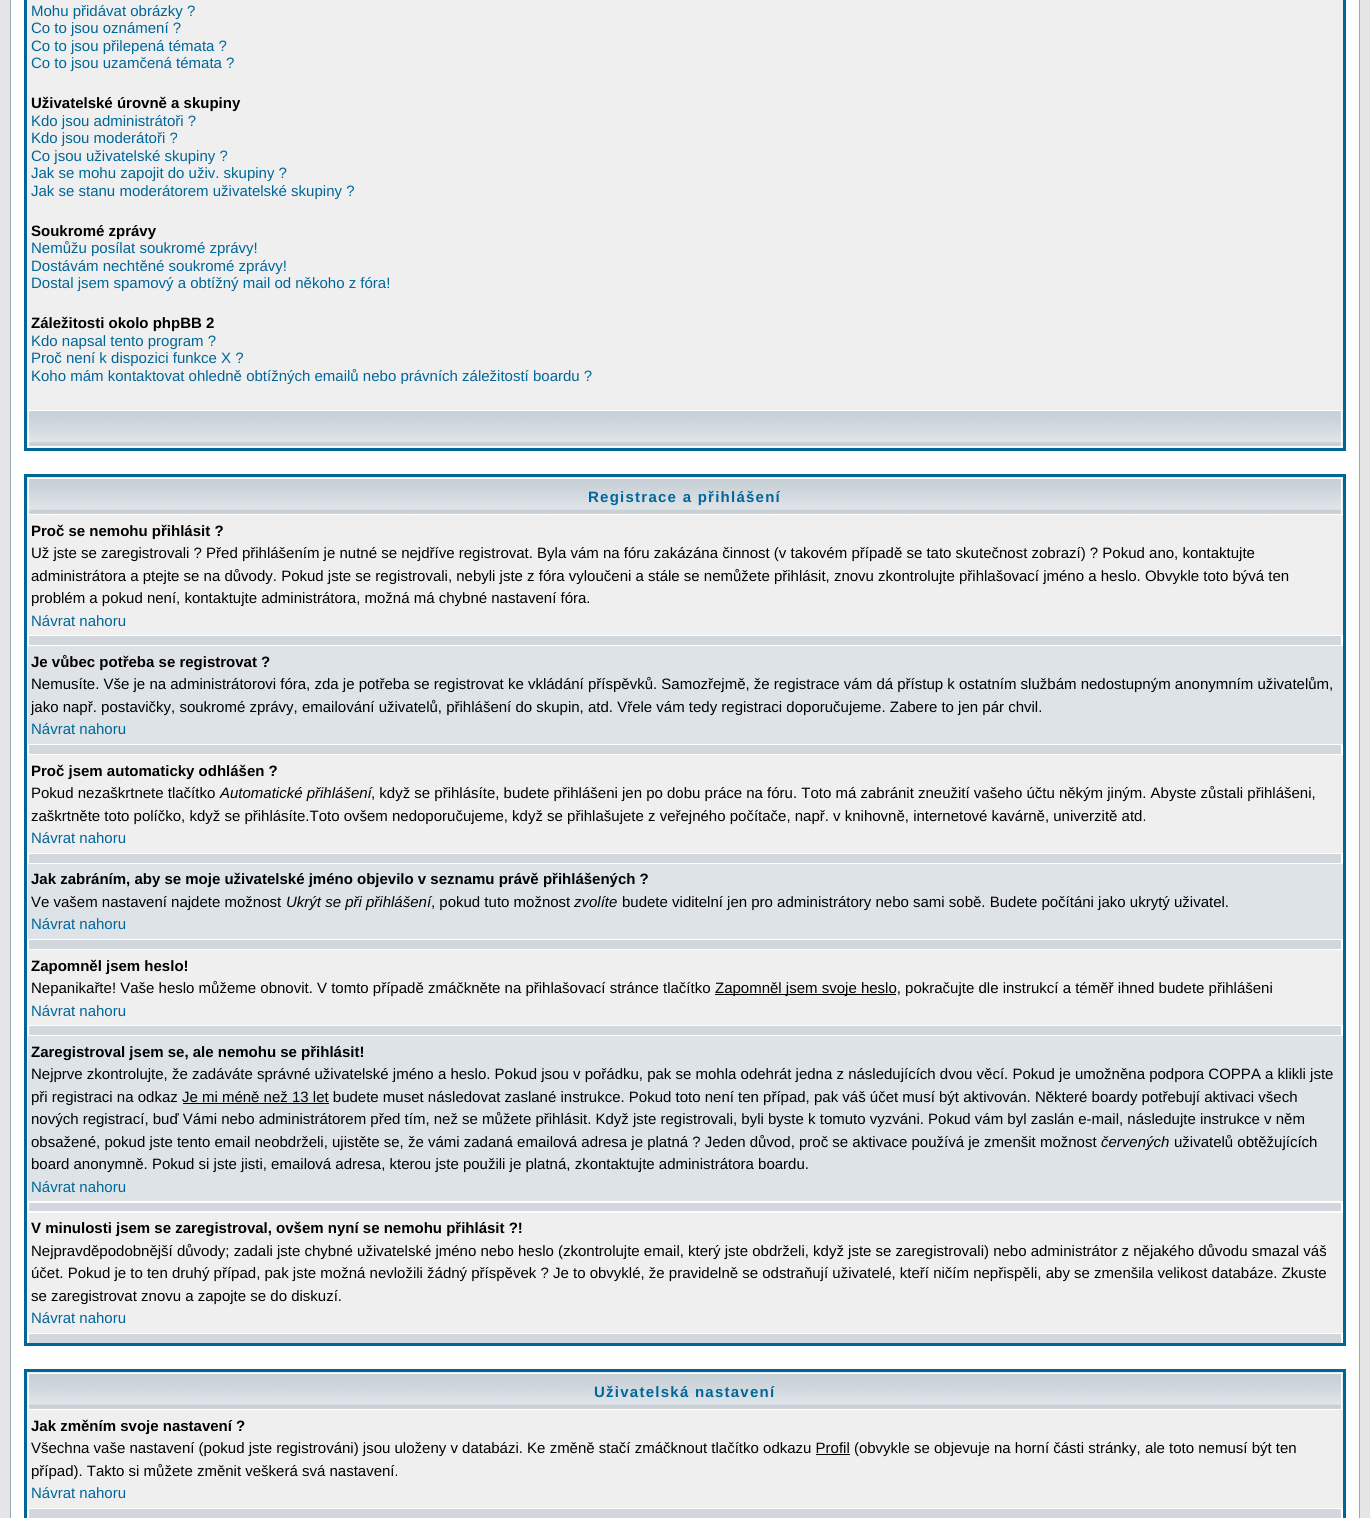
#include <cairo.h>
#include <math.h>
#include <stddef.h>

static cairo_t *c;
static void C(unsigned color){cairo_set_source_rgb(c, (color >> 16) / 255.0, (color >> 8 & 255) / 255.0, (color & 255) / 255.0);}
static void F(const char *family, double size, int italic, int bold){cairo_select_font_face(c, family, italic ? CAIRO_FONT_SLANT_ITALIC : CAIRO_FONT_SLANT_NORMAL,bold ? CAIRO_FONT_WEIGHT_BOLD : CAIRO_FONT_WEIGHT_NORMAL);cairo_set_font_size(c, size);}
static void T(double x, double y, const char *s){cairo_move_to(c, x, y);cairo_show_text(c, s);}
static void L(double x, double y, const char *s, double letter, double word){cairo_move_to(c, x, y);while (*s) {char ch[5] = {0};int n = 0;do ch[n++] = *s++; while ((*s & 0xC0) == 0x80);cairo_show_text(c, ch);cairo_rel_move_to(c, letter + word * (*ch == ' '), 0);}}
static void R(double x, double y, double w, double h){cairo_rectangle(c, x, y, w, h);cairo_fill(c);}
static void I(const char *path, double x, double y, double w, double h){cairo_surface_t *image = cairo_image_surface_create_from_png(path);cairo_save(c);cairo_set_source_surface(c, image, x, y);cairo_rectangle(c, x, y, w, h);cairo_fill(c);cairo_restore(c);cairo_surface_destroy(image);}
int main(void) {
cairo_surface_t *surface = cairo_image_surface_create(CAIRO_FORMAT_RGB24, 1370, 1518);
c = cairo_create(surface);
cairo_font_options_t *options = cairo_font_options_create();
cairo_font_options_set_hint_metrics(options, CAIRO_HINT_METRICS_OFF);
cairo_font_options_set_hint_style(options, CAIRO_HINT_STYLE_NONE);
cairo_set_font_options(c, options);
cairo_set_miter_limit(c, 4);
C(0xe5e5e5);
cairo_paint(c);
C(0xffffff);
cairo_rectangle(c,10.5,-.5,1349,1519);
cairo_fill_preserve(c);
C(0x98aab1);
cairo_set_line_width(c,1);
cairo_stroke(c);
cairo_rectangle(c,25.5,-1.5,1319,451);
C(0x006699);
cairo_set_line_width(c,3);
cairo_stroke(c);
C(0xefefef);
R(28,0,1315,410);
F("Liberation Sans",15,0,0);
C(0x006699);
T(31,16,"Mohu přidávat obrázky ?");
T(31,33,"Co to jsou oznámení ?");
T(31,51,"Co to jsou přilepená témata ?");
T(31,68,"Co to jsou uzamčená témata ?");
F("Liberation Sans",15,0,1);
C(0x000000);
T(31,108,"Uživatelské úrovně a skupiny");
F("Liberation Sans",15,0,0);
C(0x006699);
T(31,126,"Kdo jsou administrátoři ?");
T(31,143,"Kdo jsou moderátoři ?");
T(31,161,"Co jsou uživatelské skupiny ?");
T(31,178,"Jak se mohu zapojit do uživ. skupiny ?");
T(31,196,"Jak se stanu moderátorem uživatelské skupiny ?");
F("Liberation Sans",15,0,1);
C(0x000000);
T(31,236,"Soukromé zprávy");
F("Liberation Sans",15,0,0);
C(0x006699);
T(31,253,"Nemůžu posílat soukromé zprávy!");
T(31,271,"Dostávám nechtěné soukromé zprávy!");
T(31,288,"Dostal jsem spamový a obtížný mail od někoho z fóra!");
F("Liberation Sans",15,0,1);
C(0x000000);
T(31,328,"Záležitosti okolo phpBB 2");
F("Liberation Sans",15,0,0);
C(0x006699);
T(31,346,"Kdo napsal tento program ?");
T(31,363,"Proč není k dispozici funkce X ?");
T(31,381,"Koho mám kontaktovat ohledně obtížných emailů nebo právních záležitostí boardu ?");
I("1.png",27,411,1316,37);
C(0xffffff);
R(1341,411,1,37);
R(28,446,1315,1);
R(28,411,1,37);
cairo_rectangle(c,25.5,475.5,1319,869);
C(0x006699);
cairo_stroke(c);
C(0xd1d7dc);
R(29,513,1312,1);
I("2.png",27,477,1316,37);
C(0xffffff);
R(28,478,1315,1);
R(1341,478,1,36);
R(28,478,1,36);
F("Liberation Sans",15,0,1);
C(0x006699);
L(588,502,"Registrace a přihlášení",1.25,0);
C(0xefefef);
R(28,515,1315,120);
C(0x000000);
T(31,536,"Proč se nemohu přihlásit ?");
F("Liberation Sans",15,0,0);
T(31,558,"Už jste se zaregistrovali ? Před přihlášením je nutné se nejdříve registrovat. Byla vám na fóru zakázána činnost (v takovém případě se tato skutečnost zobrazí) ? Pokud ano, kontaktujte");
T(31,581,"administrátora a ptejte se na důvody. Pokud jste se registrovali, nebyli jste z fóra vyloučeni a stále se nemůžete přihlásit, znovu zkontrolujte přihlašovací jméno a heslo. Obvykle toto bývá ten");
T(31,603,"problém a pokud není, kontaktujte administrátora, možná má chybné nastavení fóra.");
C(0x006699);
T(31,626,"Návrat nahoru");
C(0xd1d7dc);
R(29,636,1312,9);
C(0xdee3e7);
R(28,646,1315,98);
F("Liberation Sans",15,0,1);
C(0x000000);
T(31,667,"Je vůbec potřeba se registrovat ?");
F("Liberation Sans",15,0,0);
T(31,689,"Nemusíte. Vše je na administrátorovi fóra, zda je potřeba se registrovat ke vkládání příspěvků. Samozřejmě, že registrace vám dá přístup k ostatním službám nedostupným anonymním uživatelům,");
T(31,712,"jako např. postavičky, soukromé zprávy, emailování uživatelů, přihlášení do skupin, atd. Vřele vám tedy registraci doporučujeme. Zabere to jen pár chvil.");
C(0x006699);
T(31,734,"Návrat nahoru");
C(0xd1d7dc);
R(29,745,1312,9);
C(0xefefef);
R(28,755,1315,98);
F("Liberation Sans",15,0,1);
C(0x000000);
T(31,776,"Proč jsem automaticky odhlášen ?");
F("Liberation Sans",15,0,0);
T(31,798,"Pokud nezaškrtnete tlačítko");
F("Liberation Sans",15,1,0);
T(220,798,"Automatické přihlášení");
F("Liberation Sans",15,0,0);
T(371,798,", když se přihlásíte, budete přihlášeni jen po dobu práce na fóru. Toto má zabránit zneužití vašeho účtu někým jiným. Abyste zůstali přihlášeni,");
T(31,821,"zaškrtněte toto políčko, když se přihlásíte.Toto ovšem nedoporučujeme, když se přihlašujete z veřejného počítače, např. v knihovně, internetové kavárně, univerzitě atd.");
C(0x006699);
T(31,843,"Návrat nahoru");
C(0xd1d7dc);
R(29,854,1312,9);
C(0xdee3e7);
R(28,864,1315,75);
F("Liberation Sans",15,0,1);
C(0x000000);
T(31,884,"Jak zabráním, aby se moje uživatelské jméno objevilo v seznamu právě přihlášených ?");
F("Liberation Sans",15,0,0);
T(31,907,"Ve vašem nastavení najdete možnost");
F("Liberation Sans",15,1,0);
T(286,907,"Ukrýt se při přihlášení");
F("Liberation Sans",15,0,0);
T(431,907,", pokud tuto možnost");
F("Liberation Sans",15,1,0);
T(574,907,"zvolíte");
F("Liberation Sans",15,0,0);
T(622,907,"budete viditelní jen pro administrátory nebo sami sobě. Budete počítáni jako ukrytý uživatel.");
C(0x006699);
T(31,929,"Návrat nahoru");
C(0xd1d7dc);
R(29,940,1312,9);
C(0xefefef);
R(28,950,1315,75);
F("Liberation Sans",15,0,1);
C(0x000000);
T(31,971,"Zapomněl jsem heslo!");
F("Liberation Sans",15,0,0);
T(31,993,"Nepanikařte! Vaše heslo můžeme obnovit. V tomto případě zmáčkněte na přihlašovací stránce tlačítko");
R(715,994,181,1);
T(715,993,"Zapomněl jsem svoje heslo, pokračujte dle instrukcí a téměř ihned budete přihlášeni");
C(0x006699);
T(31,1016,"Návrat nahoru");
C(0xd1d7dc);
R(29,1026,1312,9);
C(0xdee3e7);
R(28,1036,1315,165);
F("Liberation Sans",15,0,1);
C(0x000000);
T(31,1057,"Zaregistroval jsem se, ale nemohu se přihlásit!");
F("Liberation Sans",15,0,0);
T(31,1079,"Nejprve zkontrolujte, že zadáváte správné uživatelské jméno a heslo. Pokud jsou v pořádku, pak se mohla odehrát jedna z následujících dvou věcí. Pokud je umožněna podpora COPPA a klikli jste");
T(31,1102,"při registraci na odkaz Je mi méně než 13 let budete muset následovat zaslané instrukce. Pokud toto není ten případ, pak váš účet musí být aktivován. Některé boardy potřebují aktivaci všech");
R(183,1103,146,1);
T(31,1124,"nových registrací, buď Vámi nebo administrátorem před tím, než se můžete přihlásit. Když jste registrovali, byli byste k tomuto vyzváni. Pokud vám byl zaslán e-mail, následujte instrukce v něm");
T(31,1147,"obsažené, pokud jste tento email neobdrželi, ujistěte se, že vámi zadaná emailová adresa je platná ? Jeden důvod, proč se aktivace používá je zmenšit možnost");
F("Liberation Sans",15,1,0);
T(1101,1147,"červených");
F("Liberation Sans",15,0,0);
T(1174,1147,"uživatelů obtěžujících");
T(31,1169,"board anonymně. Pokud si jste jisti, emailová adresa, kterou jste použili je platná, zkontaktujte administrátora boardu.");
C(0x006699);
T(31,1192,"Návrat nahoru");
C(0xd1d7dc);
R(29,1203,1312,8);
C(0xefefef);
R(28,1213,1315,120);
F("Liberation Sans",15,0,1);
C(0x000000);
T(31,1233,"V minulosti jsem se zaregistroval, ovšem nyní se nemohu přihlásit ?!");
F("Liberation Sans",15,0,0);
T(31,1256,"Nejpravděpodobnější důvody; zadali jste chybné uživatelské jméno nebo heslo (zkontrolujte email, který jste obdrželi, když jste se zaregistrovali) nebo administrátor z nějakého důvodu smazal váš");
T(31,1278,"účet. Pokud je to ten druhý případ, pak jste možná nevložili žádný příspěvek ? Je to obvyklé, že pravidelně se odstraňují uživatelé, kteří ničím nepřispěli, aby se zmenšila velikost databáze. Zkuste");
T(31,1301,"se zaregistrovat znovu a zapojte se do diskuzí.");
C(0x006699);
T(31,1323,"Návrat nahoru");
C(0xd1d7dc);
R(29,1334,1312,9);
cairo_rectangle(c,25.5,1370.5,1319,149);
C(0x006699);
cairo_stroke(c);
C(0xd1d7dc);
R(29,1408,1312,1);
I("3.png",27,1372,1316,37);
C(0xffffff);
R(28,1373,1315,1);
R(1341,1373,1,36);
R(28,1373,1,36);
F("Liberation Sans",15,0,1);
C(0x006699);
L(594,1397,"Uživatelská nastavení",1.25,0);
C(0xefefef);
R(28,1410,1315,98);
C(0x000000);
T(31,1431,"Jak změním svoje nastavení ?");
F("Liberation Sans",15,0,0);
T(31,1453,"Všechna vaše nastavení (pokud jste registrováni) jsou uloženy v databázi. Ke změně stačí zmáčknout tlačítko odkazu Profil (obvykle se objevuje na horní části stránky, ale toto nemusí být ten");
R(816,1454,34,1);
T(31,1476,"případ). Takto si můžete změnit veškerá svá nastavení.");
C(0x006699);
T(31,1498,"Návrat nahoru");
C(0xd1d7dc);
R(29,1509,1312,9);
cairo_surface_write_to_png(surface, "o.png");
cairo_font_options_destroy(options);
cairo_destroy(c);
cairo_surface_destroy(surface);
return 0;
}
